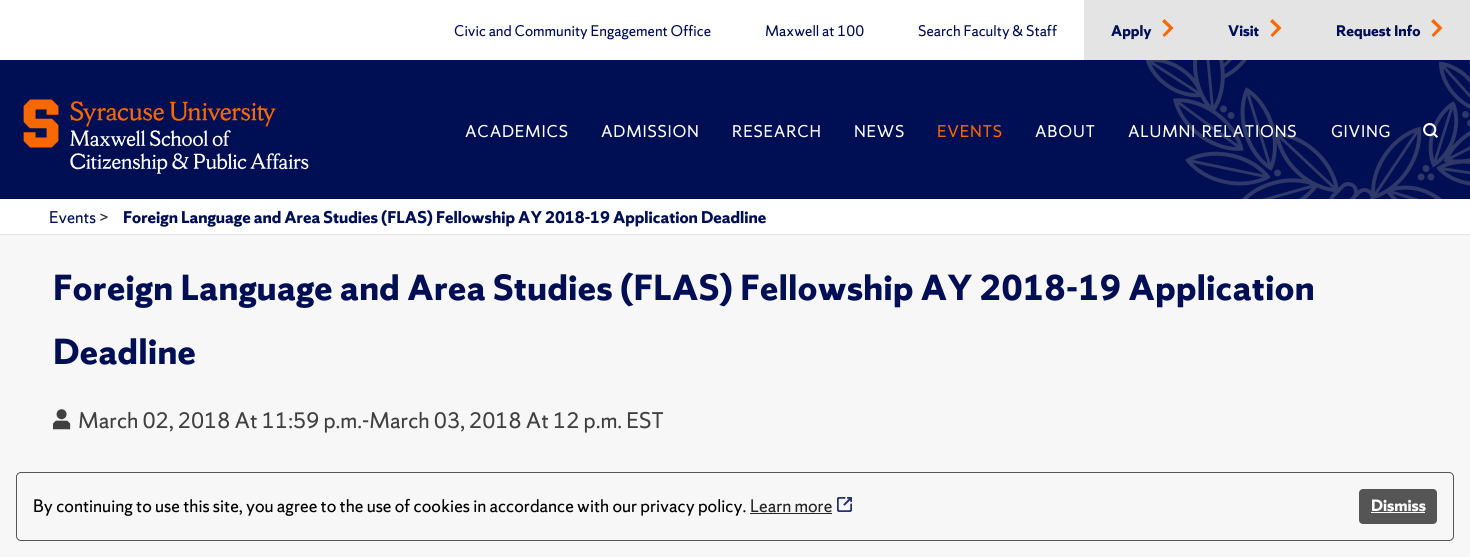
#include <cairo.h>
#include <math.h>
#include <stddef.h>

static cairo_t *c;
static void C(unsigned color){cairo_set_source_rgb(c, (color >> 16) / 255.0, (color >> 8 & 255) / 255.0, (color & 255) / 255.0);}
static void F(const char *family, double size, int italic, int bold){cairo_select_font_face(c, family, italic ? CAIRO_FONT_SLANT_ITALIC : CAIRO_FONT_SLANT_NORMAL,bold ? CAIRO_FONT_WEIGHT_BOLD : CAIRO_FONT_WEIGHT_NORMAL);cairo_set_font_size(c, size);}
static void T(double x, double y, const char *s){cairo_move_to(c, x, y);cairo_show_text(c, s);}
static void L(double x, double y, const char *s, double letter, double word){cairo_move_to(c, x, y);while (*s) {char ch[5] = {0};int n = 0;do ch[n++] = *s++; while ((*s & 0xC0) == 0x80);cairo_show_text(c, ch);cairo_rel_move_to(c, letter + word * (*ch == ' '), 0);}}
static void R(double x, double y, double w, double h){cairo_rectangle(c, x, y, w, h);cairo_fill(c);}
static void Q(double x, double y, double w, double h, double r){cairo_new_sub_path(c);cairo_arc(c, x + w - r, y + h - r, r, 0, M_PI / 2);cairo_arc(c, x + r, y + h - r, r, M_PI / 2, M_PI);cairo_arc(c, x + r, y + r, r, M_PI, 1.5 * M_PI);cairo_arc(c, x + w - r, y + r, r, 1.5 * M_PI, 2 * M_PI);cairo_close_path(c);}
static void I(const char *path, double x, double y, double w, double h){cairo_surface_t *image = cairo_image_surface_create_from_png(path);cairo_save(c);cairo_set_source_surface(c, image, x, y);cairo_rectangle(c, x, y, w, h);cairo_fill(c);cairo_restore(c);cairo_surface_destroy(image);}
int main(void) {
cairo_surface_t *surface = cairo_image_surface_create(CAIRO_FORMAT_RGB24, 1470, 557);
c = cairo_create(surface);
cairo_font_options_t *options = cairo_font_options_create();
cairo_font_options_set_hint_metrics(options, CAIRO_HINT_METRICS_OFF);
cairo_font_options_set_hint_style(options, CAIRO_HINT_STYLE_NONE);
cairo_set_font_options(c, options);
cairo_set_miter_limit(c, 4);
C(0xf7f7f8);
cairo_paint(c);
C(0xffffff);
R(0,0,1084,60);
F("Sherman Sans",13.6,0,0);
C(0x000e54);
T(454,36,"Civic and Community Engagement Office");
T(765,36,"Maxwell at 100");
T(918,36,"Search Faculty & Staff");
C(0xe4e4e4);
R(1084,0,386,60);
F("Sherman Sans",13.6,0,1);
C(0x000e54);
T(1111,36,"Apply");
C(0xf76900);
cairo_new_path(c);
cairo_move_to(c,1162,21.5);
cairo_line_to(c,1169,28);
cairo_line_to(c,1162.5,35);
cairo_line_to(c,1164.5,37);
cairo_line_to(c,1173.5,28);
cairo_line_to(c,1164.5,19);
cairo_close_path(c);
cairo_fill(c);
C(0x000e54);
T(1228,36,"Visit");
C(0xf76900);
cairo_new_path(c);
cairo_move_to(c,1270,21.5);
cairo_line_to(c,1277,28);
cairo_line_to(c,1270.5,35);
cairo_line_to(c,1272.5,37);
cairo_line_to(c,1281.5,28);
cairo_line_to(c,1272.5,19);
cairo_close_path(c);
cairo_fill(c);
C(0x000e54);
T(1336,36,"Request Info");
C(0xf76900);
cairo_new_path(c);
cairo_move_to(c,1431,21.5);
cairo_line_to(c,1438,28);
cairo_line_to(c,1431.5,35);
cairo_line_to(c,1433.5,37);
cairo_line_to(c,1442.5,28);
cairo_line_to(c,1433.5,19);
cairo_close_path(c);
cairo_fill(c);
C(0x000e54);
R(0,60,1470,139);
I("1.png",1145,60,325,139);
I("2.png",23,99,286,75);
F("Sherman Sans",15,0,0);
C(0xffffff);
L(465,137,"ACADEMICS",.75,0);
L(601,137,"ADMISSION",.75,0);
L(732,137,"RESEARCH",.75,0);
L(854,137,"NEWS",.75,0);
C(0xf76900);
L(937,137,"EVENTS",.75,0);
C(0xffffff);
L(1035,137,"ABOUT",.75,0);
L(1128,137,"ALUMNI RELATIONS",.75,2);
L(1331,137,"GIVING",.75,0);
I("3.png",1423,123,15,15);
R(0,199,1470,35);
C(0xe4e4e4);
R(0,234,1470,1);
C(0x000e54);
T(49,223,"Events");
C(0x383838);
T(99,223,">");
F("Sherman Sans",15,0,1);
C(0x000e54);
T(123,223,"Foreign Language and Area Studies (FLAS) Fellowship AY 2018-19 Application Deadline");
F("Sherman Sans",32,0,1);
L(53,300,"Foreign Language and Area Studies (FLAS) Fellowship AY 2018-19 Application",.48,0);
L(53,364,"Deadline",.48,0);
I("4.png",53,409,18,21);
F("Sherman Sans",20,0,0);
C(0x404040);
T(78,428,"March 02, 2018 At 11:59 p.m.-March 03, 2018 At 12 p.m. EST");
Q(16.5,472.5,1437,68,4.5);
C(0x555555);
cairo_set_line_width(c,1);
cairo_stroke(c);
F("Sherman Sans",16,0,0);
C(0x000000);
T(33,512,"By continuing to use this site, you agree to the use of cookies in accordance with our privacy policy.");
C(0x252525);
T(750,512,"Learn more");
R(750,513,82,1);
I("5.png",837,497,15,15);
C(0x555555);
Q(1359,489,78,35,4);
cairo_fill(c);
F("Sherman Sans",14.5,0,1);
C(0xffffff);
T(1371,511,"Dismiss");
R(1371,512,54,1);
cairo_surface_write_to_png(surface, "o.png");
cairo_font_options_destroy(options);
cairo_destroy(c);
cairo_surface_destroy(surface);
return 0;
}
